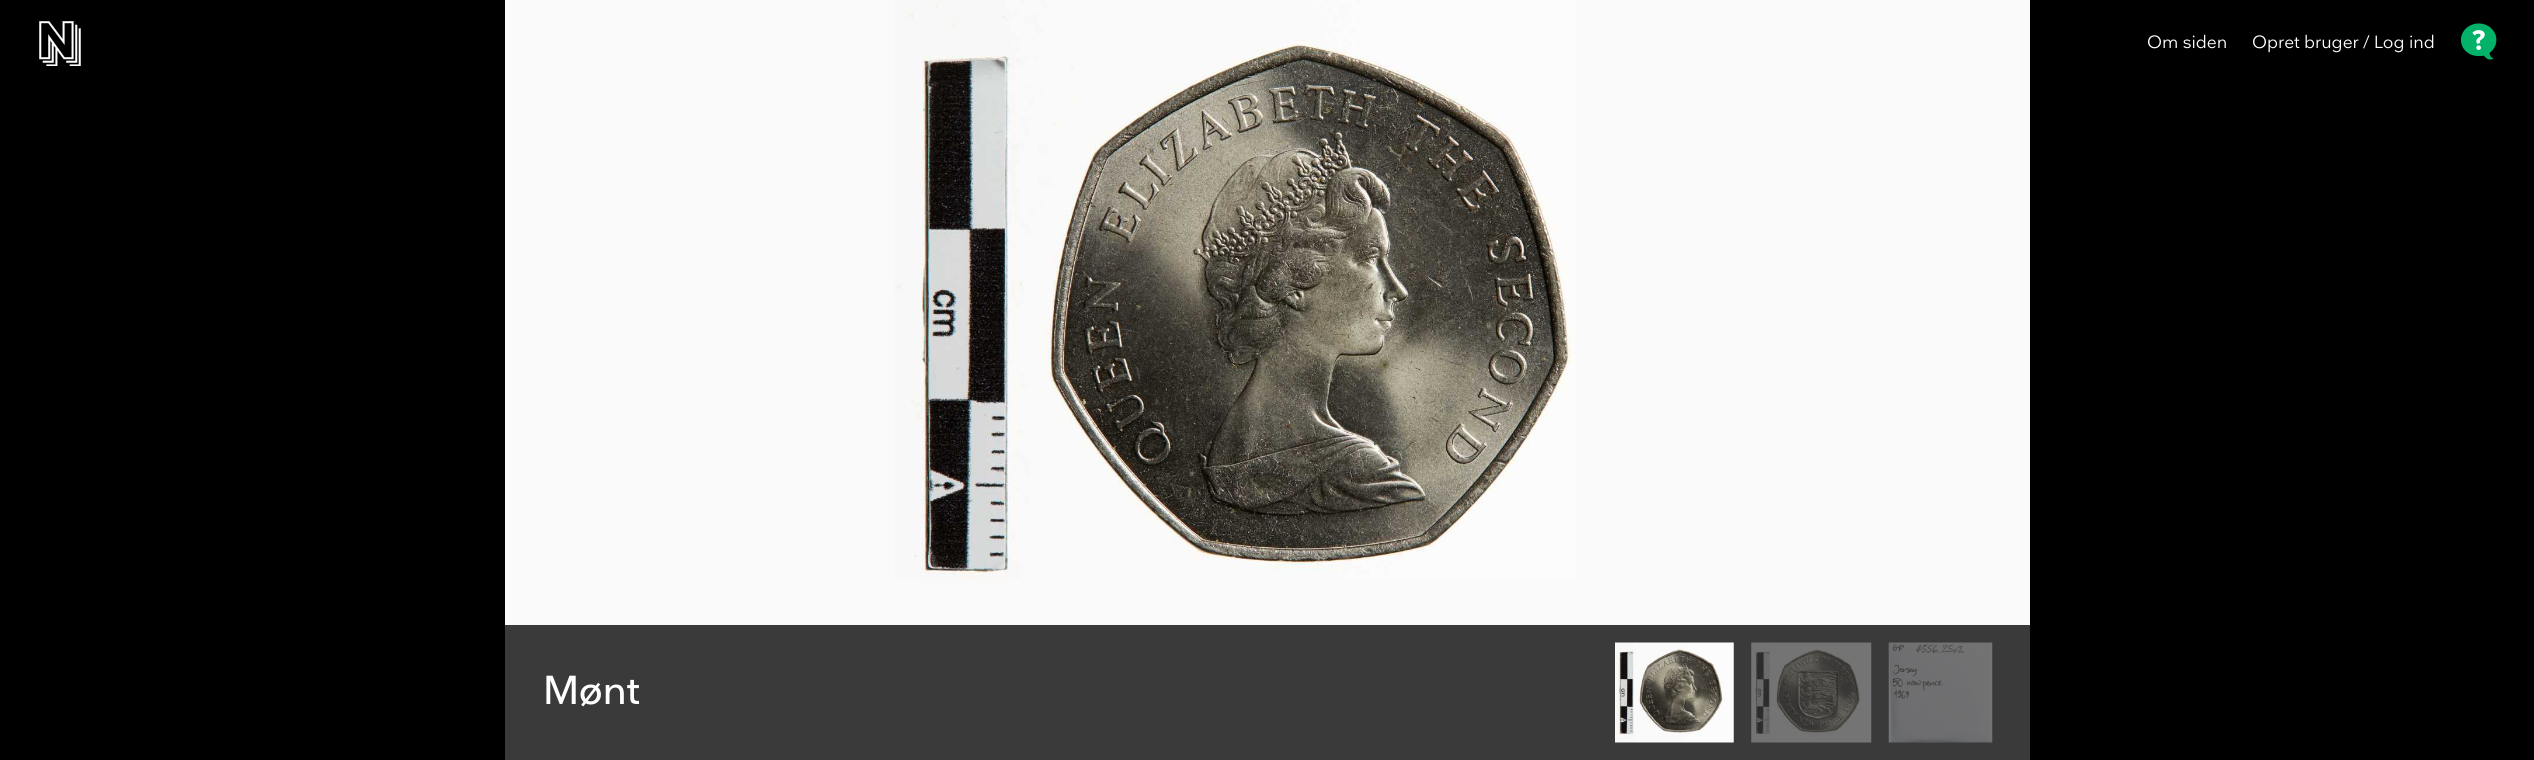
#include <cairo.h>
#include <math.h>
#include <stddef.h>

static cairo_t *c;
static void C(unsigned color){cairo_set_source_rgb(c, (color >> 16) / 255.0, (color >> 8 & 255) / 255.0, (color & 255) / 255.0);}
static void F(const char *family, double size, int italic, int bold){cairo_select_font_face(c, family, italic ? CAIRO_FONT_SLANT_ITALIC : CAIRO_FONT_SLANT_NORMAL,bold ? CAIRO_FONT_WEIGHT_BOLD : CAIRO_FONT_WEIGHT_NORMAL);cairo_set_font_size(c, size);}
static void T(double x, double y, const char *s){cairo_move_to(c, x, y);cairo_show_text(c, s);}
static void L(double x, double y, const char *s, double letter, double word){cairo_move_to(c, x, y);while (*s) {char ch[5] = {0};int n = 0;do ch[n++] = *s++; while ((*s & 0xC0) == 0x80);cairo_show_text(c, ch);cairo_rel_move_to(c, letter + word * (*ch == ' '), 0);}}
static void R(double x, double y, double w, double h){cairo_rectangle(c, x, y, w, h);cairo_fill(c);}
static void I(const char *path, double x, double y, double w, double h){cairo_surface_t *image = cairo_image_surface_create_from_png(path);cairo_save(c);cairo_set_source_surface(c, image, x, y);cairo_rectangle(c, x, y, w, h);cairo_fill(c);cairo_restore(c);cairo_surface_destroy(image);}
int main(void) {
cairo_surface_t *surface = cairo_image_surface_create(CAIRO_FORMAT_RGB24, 2534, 760);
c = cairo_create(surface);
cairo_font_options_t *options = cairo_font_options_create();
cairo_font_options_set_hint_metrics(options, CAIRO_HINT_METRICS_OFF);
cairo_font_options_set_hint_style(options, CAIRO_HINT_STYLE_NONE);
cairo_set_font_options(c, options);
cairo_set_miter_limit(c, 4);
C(0x000000);
cairo_paint(c);
I("1.png",39,21,42,45);
F("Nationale",17.5,0,0);
C(0xffffff);
T(2147,48,"Om siden");
T(2252,48,"Opret bruger / Log ind");
I("2.png",2461,23,36,37);
C(0xfafafa);
R(505,0,1525,625);
I("3.png",895,0,681,580);
C(0x3a3a3a);
R(505,625,1525,135);
F("Nationale Medium",40,0,0);
C(0xffffff);
L(543,704,"Mønt",-.5,0);
I("4.png",1615,642,119,101);
I("5.png",1751,642,121,101);
I("6.png",1888,642,105,101);
cairo_surface_write_to_png(surface, "o.png");
cairo_font_options_destroy(options);
cairo_destroy(c);
cairo_surface_destroy(surface);
return 0;
}
